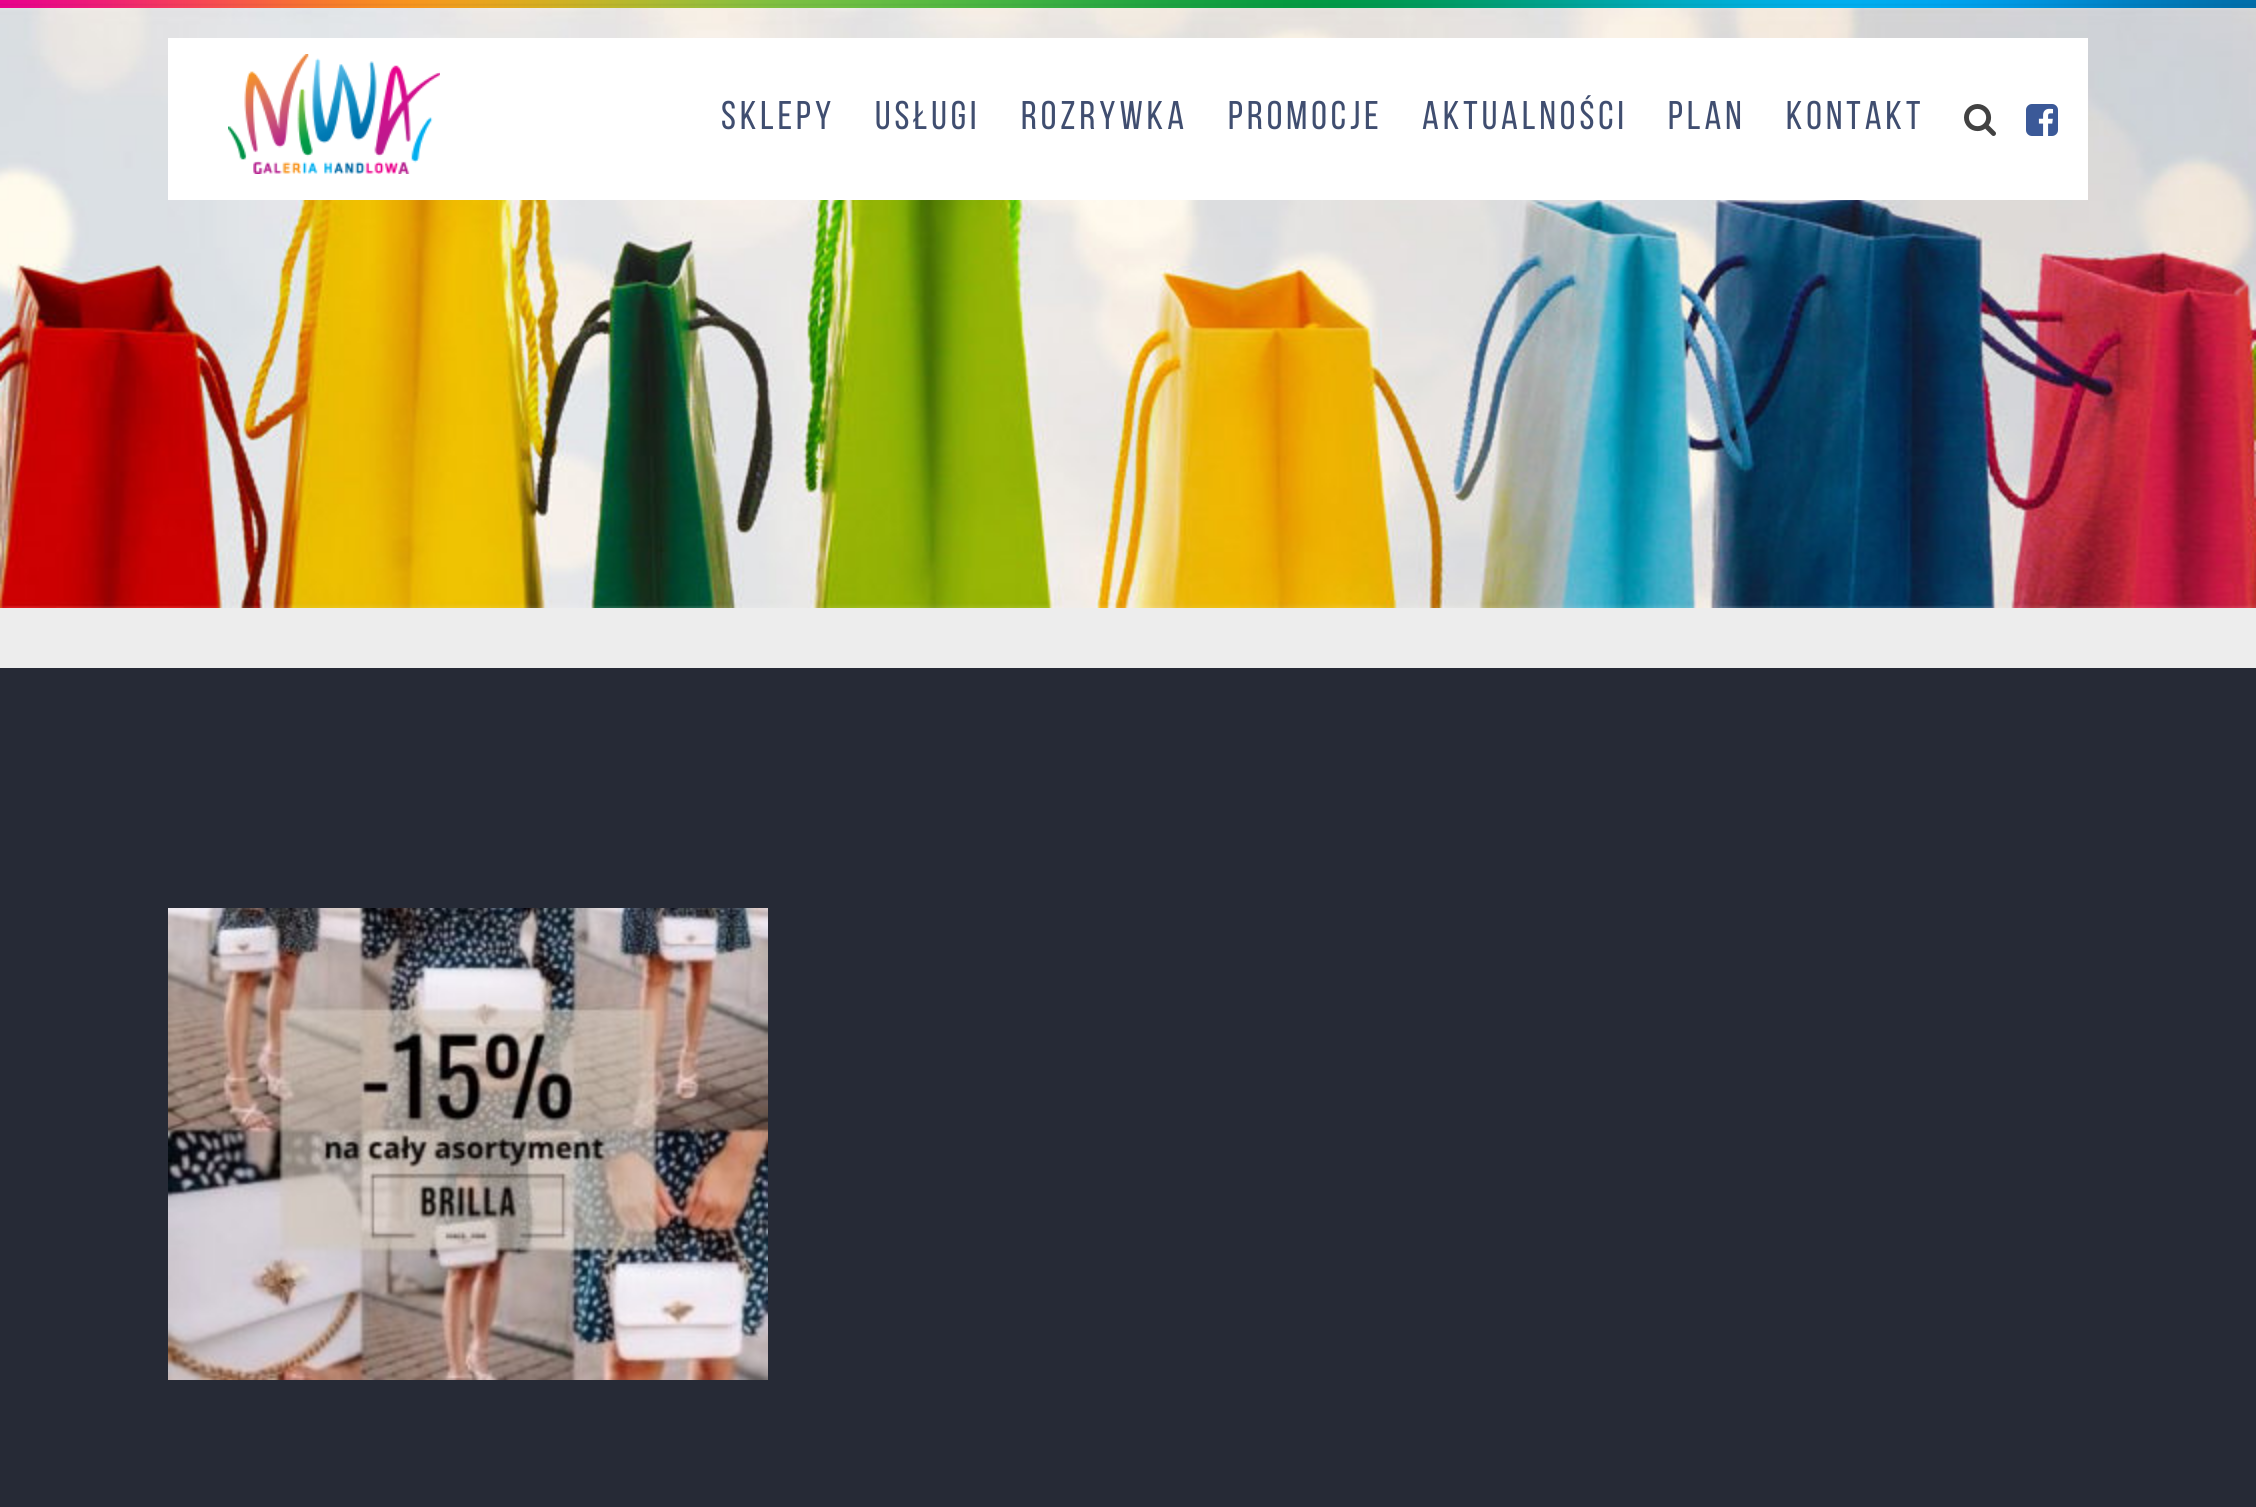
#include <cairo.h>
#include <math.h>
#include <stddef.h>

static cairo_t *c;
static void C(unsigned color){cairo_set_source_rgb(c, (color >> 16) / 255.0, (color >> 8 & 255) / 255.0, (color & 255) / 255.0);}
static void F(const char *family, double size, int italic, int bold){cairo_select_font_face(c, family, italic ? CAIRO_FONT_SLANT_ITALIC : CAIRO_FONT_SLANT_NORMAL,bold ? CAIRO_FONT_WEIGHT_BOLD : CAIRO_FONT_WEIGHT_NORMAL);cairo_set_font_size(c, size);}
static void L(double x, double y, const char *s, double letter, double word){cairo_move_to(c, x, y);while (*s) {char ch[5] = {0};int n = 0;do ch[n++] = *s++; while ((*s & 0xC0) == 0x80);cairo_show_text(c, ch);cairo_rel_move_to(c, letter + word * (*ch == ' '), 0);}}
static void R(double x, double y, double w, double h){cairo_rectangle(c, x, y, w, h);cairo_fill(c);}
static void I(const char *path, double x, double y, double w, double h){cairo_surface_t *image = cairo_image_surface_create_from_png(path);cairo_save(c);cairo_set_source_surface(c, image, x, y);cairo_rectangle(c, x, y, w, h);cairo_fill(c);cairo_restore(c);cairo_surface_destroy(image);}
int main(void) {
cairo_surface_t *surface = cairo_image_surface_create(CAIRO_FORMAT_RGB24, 2256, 1507);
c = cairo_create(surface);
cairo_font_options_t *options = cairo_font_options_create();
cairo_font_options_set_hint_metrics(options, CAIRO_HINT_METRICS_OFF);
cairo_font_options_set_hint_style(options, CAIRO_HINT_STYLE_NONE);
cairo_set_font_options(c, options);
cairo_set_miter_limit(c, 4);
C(0x262a36);
cairo_paint(c);
I("1.png",0,0,2256,8);
I("2.png",0,8,2256,600);
C(0xffffff);
R(168,38,1920,162);
I("3.png",228,54,212,120);
F("Bebas Neue",40,0,0);
C(0x404e70);
L(721,129,"Sklepy",4,0);
L(875,129,"Usługi",4,0);
L(1021,129,"Rozrywka",4,0);
L(1228,129,"Promocje",4,0);
L(1422,129,"Aktualności",4,0);
L(1668,129,"Plan",4,0);
L(1786,129,"Kontakt",4,0);
I("4.png",1964,104,32,32);
I("5.png",2026,104,32,32);
C(0xededed);
R(0,608,2256,60);
I("6.png",168,908,600,472);
cairo_surface_write_to_png(surface, "o.png");
cairo_font_options_destroy(options);
cairo_destroy(c);
cairo_surface_destroy(surface);
return 0;
}
